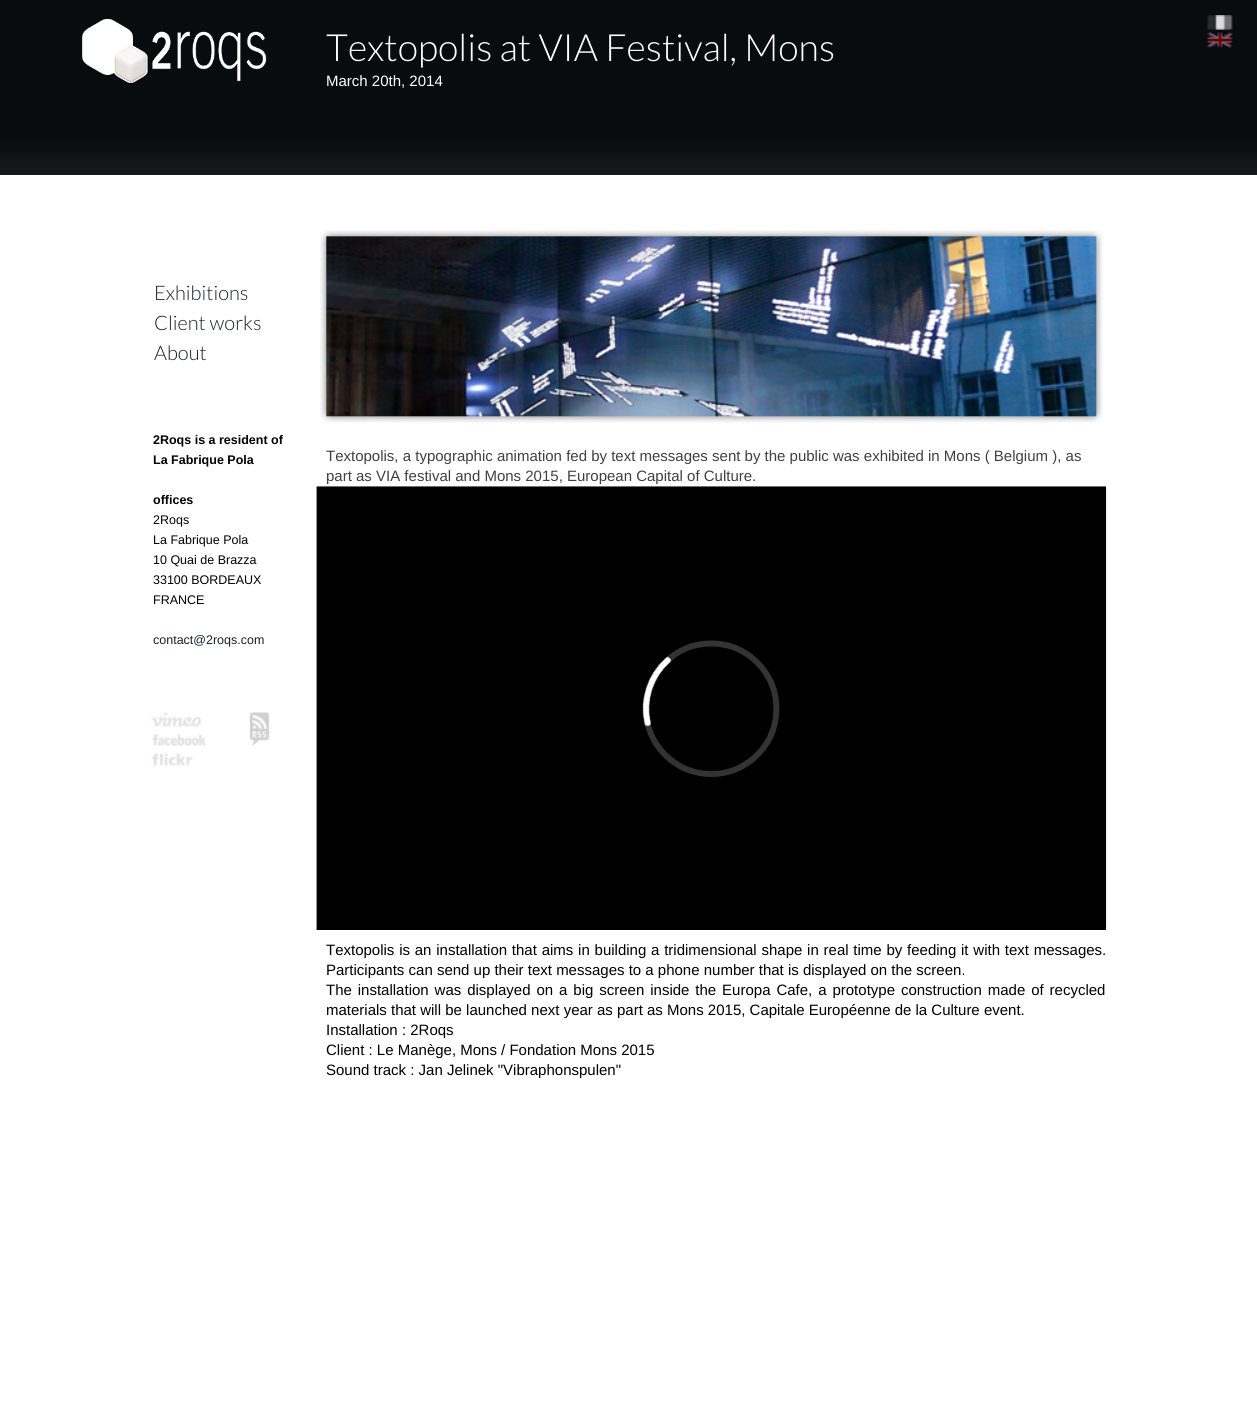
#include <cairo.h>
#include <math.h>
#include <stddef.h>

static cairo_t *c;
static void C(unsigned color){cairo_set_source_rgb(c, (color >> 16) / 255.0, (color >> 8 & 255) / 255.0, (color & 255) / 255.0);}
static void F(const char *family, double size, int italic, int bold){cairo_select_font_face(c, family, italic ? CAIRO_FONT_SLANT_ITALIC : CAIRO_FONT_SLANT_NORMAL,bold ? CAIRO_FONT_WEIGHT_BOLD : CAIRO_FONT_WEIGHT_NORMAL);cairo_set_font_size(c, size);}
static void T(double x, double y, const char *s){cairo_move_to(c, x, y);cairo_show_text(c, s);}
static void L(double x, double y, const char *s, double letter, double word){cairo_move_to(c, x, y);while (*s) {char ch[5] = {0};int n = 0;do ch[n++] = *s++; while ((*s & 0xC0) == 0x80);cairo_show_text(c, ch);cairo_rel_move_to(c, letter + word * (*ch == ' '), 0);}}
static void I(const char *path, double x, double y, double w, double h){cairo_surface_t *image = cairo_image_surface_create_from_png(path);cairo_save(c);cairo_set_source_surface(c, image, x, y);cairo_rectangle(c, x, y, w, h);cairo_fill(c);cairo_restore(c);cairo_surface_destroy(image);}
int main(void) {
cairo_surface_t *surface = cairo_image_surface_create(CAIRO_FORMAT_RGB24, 1257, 1411);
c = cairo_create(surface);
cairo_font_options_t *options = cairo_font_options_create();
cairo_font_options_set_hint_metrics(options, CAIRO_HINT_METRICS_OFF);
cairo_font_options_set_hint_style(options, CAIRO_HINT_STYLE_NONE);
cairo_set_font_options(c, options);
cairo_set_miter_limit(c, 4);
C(0xffffff);
cairo_paint(c);
I("1.png",0,0,1257,175);
I("2.png",82,18,185,65);
F("Lato Light",20,0,0);
C(0x1b1f22);
T(154,300,"Exhibitions");
T(154,330,"Client works");
T(154,360,"About");
F("Liberation Sans",12.5,0,1);
C(0x000000);
T(153,444,"2Roqs is a resident of");
T(153,464,"La Fabrique Pola");
T(153,504,"offices");
F("Liberation Sans",12.5,0,0);
T(153,524,"2Roqs");
T(153,544,"La Fabrique Pola");
T(153,564,"10 Quai de Brazza");
T(153,584,"33100 BORDEAUX");
T(153,604,"FRANCE");
C(0x1b1f22);
T(153,644,"contact@2roqs.com");
I("3.png",151,712,51,15);
I("4.png",250,712,20,34);
I("5.png",152,734,54,12);
I("6.png",151,753,42,13);
F("Lato Light",37.5,0,0);
C(0xffffff);
T(326,61,"Textopolis at VIA Festival, Mons");
F("Liberation Sans",15,0,0);
T(326,86,"March 20th, 2014");
I("7.png",320,230,783,193);
C(0x404040);
T(326,461,"Textopolis, a typographic animation fed by text messages sent by the public was exhibited in Mons ( Belgium ), as");
T(326,481,"part as VIA festival and Mons 2015, European Capital of Culture.");
I("8.png",316,486,791,444);
C(0x000000);
L(326,955,"Textopolis is an installation that aims in building a tridimensional shape in real time by feeding it with text messages.",0,.6);
T(326,975,"Participants can send up their text messages to a phone number that is displayed on the screen.");
L(326,995,"The installation was displayed on a big screen inside the Europa Cafe, a prototype construction made of recycled",0,1.75);
T(326,1015,"materials that will be launched next year as part as Mons 2015, Capitale Européenne de la Culture event.");
T(326,1035,"Installation : 2Roqs");
T(326,1055,"Client : Le Manège, Mons / Fondation Mons 2015");
T(326,1075,"Sound track : Jan Jelinek \"Vibraphonspulen\"");
I("9.png",1207,15,26,15);
I("10.png",1207,32,26,16);
cairo_surface_write_to_png(surface, "o.png");
cairo_font_options_destroy(options);
cairo_destroy(c);
cairo_surface_destroy(surface);
return 0;
}
